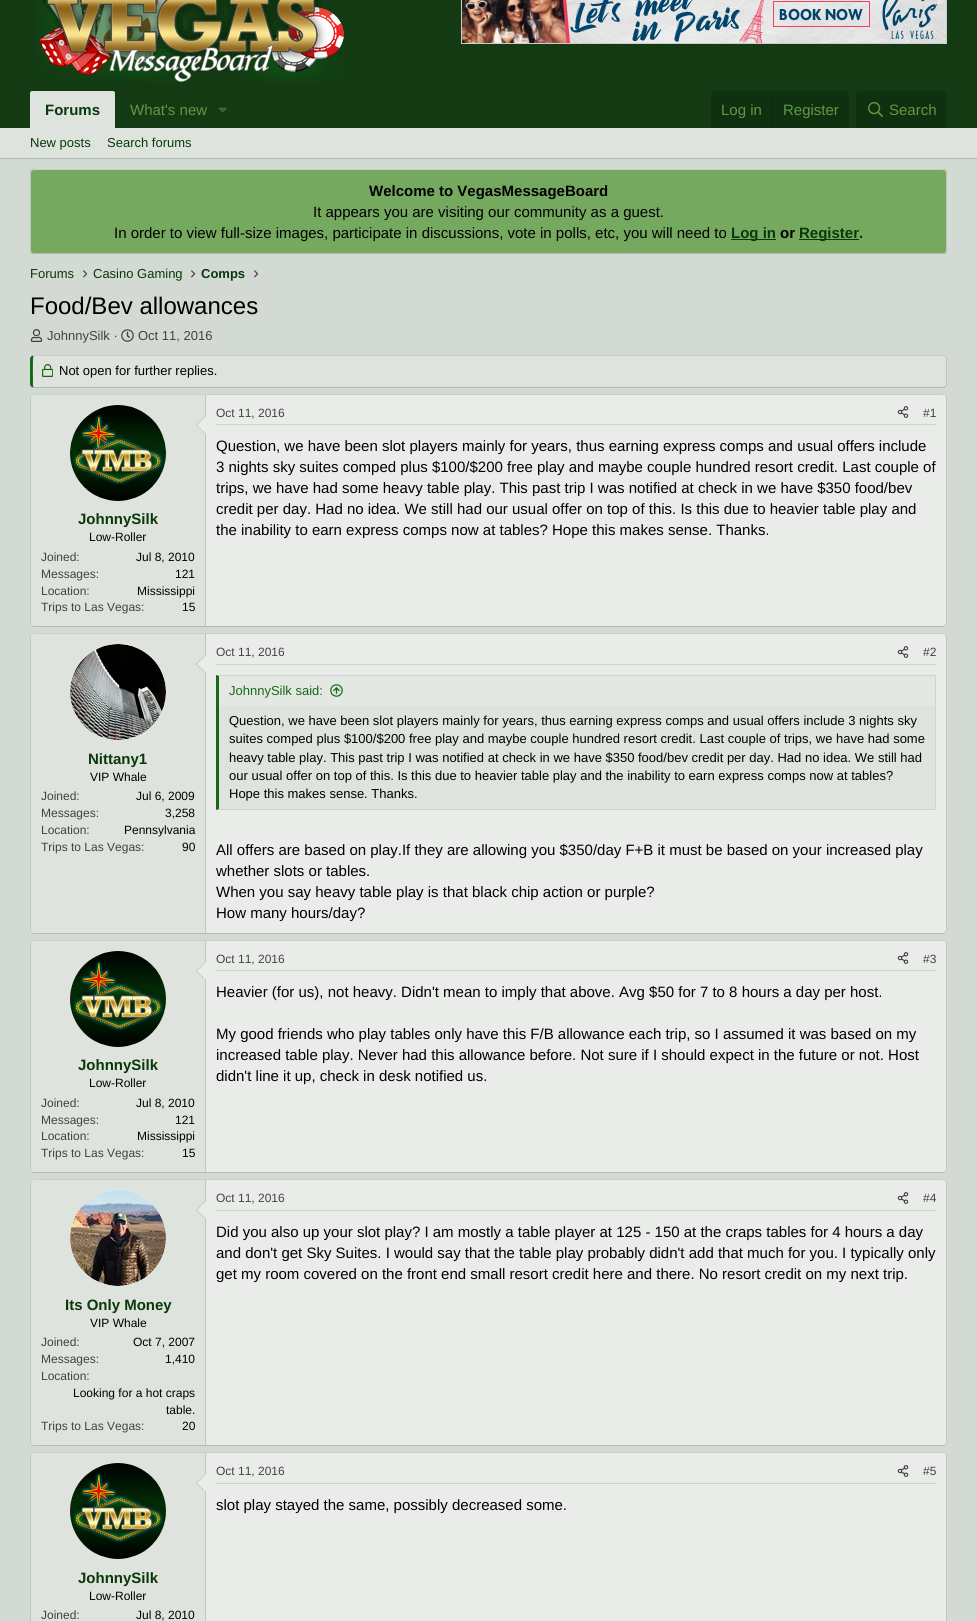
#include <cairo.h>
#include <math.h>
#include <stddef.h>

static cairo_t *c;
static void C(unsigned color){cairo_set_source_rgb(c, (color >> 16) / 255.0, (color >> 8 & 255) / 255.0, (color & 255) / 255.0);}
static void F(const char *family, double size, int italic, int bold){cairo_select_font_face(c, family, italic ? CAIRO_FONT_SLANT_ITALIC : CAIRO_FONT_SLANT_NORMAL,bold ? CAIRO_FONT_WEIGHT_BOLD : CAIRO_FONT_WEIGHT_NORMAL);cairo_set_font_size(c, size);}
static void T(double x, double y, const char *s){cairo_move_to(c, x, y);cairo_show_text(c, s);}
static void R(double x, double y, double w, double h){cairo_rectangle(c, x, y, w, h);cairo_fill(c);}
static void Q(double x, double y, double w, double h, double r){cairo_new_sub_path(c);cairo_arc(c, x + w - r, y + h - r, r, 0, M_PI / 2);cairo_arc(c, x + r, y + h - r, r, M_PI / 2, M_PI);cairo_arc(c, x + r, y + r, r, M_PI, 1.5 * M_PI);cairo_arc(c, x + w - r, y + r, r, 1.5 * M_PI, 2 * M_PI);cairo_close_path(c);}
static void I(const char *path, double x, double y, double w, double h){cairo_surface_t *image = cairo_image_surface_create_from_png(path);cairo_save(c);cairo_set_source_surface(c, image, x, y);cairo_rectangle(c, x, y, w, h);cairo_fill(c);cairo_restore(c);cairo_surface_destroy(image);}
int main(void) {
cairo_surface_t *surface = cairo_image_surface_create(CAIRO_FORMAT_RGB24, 977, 1621);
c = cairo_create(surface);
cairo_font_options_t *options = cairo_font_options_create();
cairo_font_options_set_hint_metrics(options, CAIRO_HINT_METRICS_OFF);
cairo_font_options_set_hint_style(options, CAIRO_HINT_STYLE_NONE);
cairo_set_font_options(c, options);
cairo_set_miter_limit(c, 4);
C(0xd3d9d3);
cairo_paint(c);
C(0x133a13);
R(0,0,977,128);
I("1.png",35,0,309,83);
I("2.png",461,0,486,44);
C(0xdee3de);
cairo_new_path(c);
cairo_move_to(c,32,91);
cairo_line_to(c,113,91);
cairo_curve_to(c,114,91,115,92,115,93);
cairo_line_to(c,115,128);
cairo_line_to(c,30,128);
cairo_line_to(c,30,93);
cairo_curve_to(c,30,92,31,91,32,91);
cairo_close_path(c);
cairo_fill(c);
F("Liberation Sans",15,0,1);
C(0x093909);
T(45,115,"Forums");
F("Liberation Sans",15,0,0);
C(0x619843);
T(130,115,"What's new");
I("3.png",218,107,9,6);
C(0x103110);
cairo_new_path(c);
cairo_move_to(c,715,91);
cairo_line_to(c,845,91);
cairo_curve_to(c,847,91,849,93,849,95);
cairo_line_to(c,849,128);
cairo_line_to(c,711,128);
cairo_line_to(c,711,95);
cairo_curve_to(c,711,93,713,91,715,91);
cairo_close_path(c);
cairo_fill(c);
C(0x619843);
T(721,115,"Log in");
C(0x0e2a0e);
R(772,91,1,37);
C(0x619843);
T(783,115,"Register");
C(0x103110);
cairo_new_path(c);
cairo_move_to(c,860,91);
cairo_line_to(c,943,91);
cairo_curve_to(c,945,91,947,93,947,95);
cairo_line_to(c,947,128);
cairo_line_to(c,856,128);
cairo_line_to(c,856,95);
cairo_curve_to(c,856,93,858,91,860,91);
cairo_close_path(c);
cairo_fill(c);
I("4.png",868,102,15,15);
C(0x619843);
T(889,115,"Search");
C(0xdee3de);
R(0,128,977,30);
C(0xb2bdb2);
R(0,158,977,1);
F("Liberation Sans",13,0,0);
C(0x093909);
T(30,147,"New posts");
T(107,147,"Search forums");
C(0x76a960);
Q(30,169,917,85,4);
cairo_fill(c);
cairo_new_path(c);
cairo_move_to(c,31.5,170.5);
cairo_line_to(c,34,169.5);
cairo_line_to(c,943,169.5);
cairo_line_to(c,945.5,170.5);
C(0xc8d0c8);
cairo_set_line_width(c,1);
cairo_stroke(c);
cairo_new_path(c);
cairo_move_to(c,945.5,170.5);
cairo_line_to(c,946.5,172.5);
cairo_line_to(c,946.5,250.5);
cairo_line_to(c,945.5,252.5);
C(0xbdc7bd);
cairo_stroke(c);
cairo_new_path(c);
cairo_move_to(c,945.5,252.5);
cairo_line_to(c,943,253.5);
cairo_line_to(c,34,253.5);
cairo_line_to(c,31.5,252.5);
C(0xb2bdb2);
cairo_stroke(c);
cairo_new_path(c);
cairo_move_to(c,31.5,252.5);
cairo_line_to(c,30.5,250.5);
cairo_line_to(c,30.5,172.5);
cairo_line_to(c,31.5,170.5);
C(0xbdc7bd);
cairo_stroke(c);
F("Liberation Sans",15,0,1);
C(0x000000);
T(369,196,"Welcome to VegasMessageBoard");
F("Liberation Sans",15,0,0);
T(313,217,"It appears you are visiting our community as a guest.");
T(114,238,"In order to view full-size images, participate in discussions, vote in polls, etc, you will need to");
C(0x093909);
R(731,239,45,1);
F("Liberation Sans",15,0,1);
T(731,238,"Log in");
C(0x000000);
T(780,238,"or");
C(0x093909);
R(799,239,60,1);
T(799,238,"Register.");
F("Liberation Sans",13,0,0);
T(30,278,"Forums");
I("5.png",83,270,4,8);
T(93,278,"Casino Gaming");
I("6.png",191,270,5,8);
F("Liberation Sans",13,0,1);
T(201,278,"Comps");
I("5.png",254,270,4,8);
F("Liberation Sans",24,0,0);
C(0x000000);
T(30,314,"Food/Bev allowances");
I("7.png",30,329,13,13);
F("Liberation Sans",13,0,0);
C(0x424242);
T(47,340,"JohnnySilk ·");
I("8.png",121,329,13,13);
T(138,340,"Oct 11, 2016");
C(0xdee3de);
cairo_new_path(c);
cairo_move_to(c,34,356);
cairo_line_to(c,943,356);
cairo_curve_to(c,945,356,946,357,946,359);
cairo_line_to(c,946,384);
cairo_curve_to(c,946,386,945,387,943,387);
cairo_line_to(c,34,387);
cairo_curve_to(c,33,387,33,386,33,384);
cairo_line_to(c,33,359);
cairo_curve_to(c,33,357,33,356,34,356);
cairo_close_path(c);
cairo_fill(c);
C(0xc8d0c8);
cairo_new_path(c);
cairo_move_to(c,34,355);
cairo_line_to(c,32,356);
cairo_line_to(c,33,356);
cairo_line_to(c,943,356);
cairo_line_to(c,945,357);
cairo_line_to(c,946,356);
cairo_line_to(c,943,355);
cairo_close_path(c);
cairo_fill(c);
C(0xbdc7bd);
cairo_new_path(c);
cairo_move_to(c,947,384);
cairo_line_to(c,947,359);
cairo_curve_to(c,947,358,946.5,357,946,356);
cairo_line_to(c,945,357);
cairo_curve_to(c,946,357,946,358,946,359);
cairo_line_to(c,946,384);
cairo_curve_to(c,946,385,946,386,945,386);
cairo_line_to(c,946,387);
cairo_curve_to(c,946.5,386,947,385,947,384);
cairo_close_path(c);
cairo_fill(c);
C(0xb2bdb2);
cairo_new_path(c);
cairo_move_to(c,34,388);
cairo_line_to(c,943,388);
cairo_line_to(c,946,387);
cairo_line_to(c,945,386);
cairo_line_to(c,943,387);
cairo_line_to(c,33,387);
cairo_line_to(c,32,387);
cairo_close_path(c);
cairo_fill(c);
C(0x166916);
cairo_new_path(c);
cairo_move_to(c,30,359);
cairo_line_to(c,30,384);
cairo_curve_to(c,30,385.5,31,386.5,32,387.5);
cairo_line_to(c,33.5,387);
cairo_curve_to(c,33,386.5,33,384.5,33,384);
cairo_curve_to(c,33,381,32.5,357,33.5,356);
cairo_line_to(c,32,355.5);
cairo_curve_to(c,31,356.5,30,357.5,30,359);
cairo_close_path(c);
cairo_fill(c);
I("9.png",42,364,11,13);
C(0x000000);
T(59,375,"Not open for further replies.");
C(0xe9ece9);
Q(30,394,917,233,4);
cairo_fill(c);
cairo_new_path(c);
cairo_move_to(c,31.5,395.5);
cairo_line_to(c,34,394.5);
cairo_line_to(c,943,394.5);
cairo_line_to(c,945.5,395.5);
C(0xc8d0c8);
cairo_stroke(c);
cairo_new_path(c);
cairo_move_to(c,945.5,395.5);
cairo_curve_to(c,946,396,946.5,397,946.5,398);
cairo_line_to(c,946.5,623);
cairo_curve_to(c,946.5,624,946,625,945.5,625.5);
C(0xbdc7bd);
cairo_stroke(c);
cairo_new_path(c);
cairo_move_to(c,945.5,625.5);
cairo_line_to(c,943,626.5);
cairo_line_to(c,34,626.5);
cairo_line_to(c,31.5,625.5);
C(0xb2bdb2);
cairo_stroke(c);
cairo_new_path(c);
cairo_move_to(c,31.5,625.5);
cairo_curve_to(c,31,625,30.5,624,30.5,623);
cairo_line_to(c,30.5,398);
cairo_curve_to(c,30.5,397,31,396,31.5,395.5);
C(0xbdc7bd);
cairo_stroke(c);
C(0xcdd5cd);
R(216,424,720,1);
F("Liberation Sans",12,0,0);
C(0x424242);
T(216,417,"Oct 11, 2016");
I("10.png",897,406,12,12);
T(923,417,"#1");
F("Liberation Sans",15,0,0);
C(0x000000);
T(216,451,"Question, we have been slot players mainly for years, thus earning express comps and usual offers include");
T(216,472,"3 nights sky suites comped plus $100/$200 free play and maybe couple hundred resort credit. Last couple of");
T(216,493,"trips, we have had some heavy table play. This past trip I was notified at check in we have $350 food/bev");
T(216,514,"credit per day. Had no idea. We still had our usual offer on top of this. Is this due to heavier table play and");
T(216,535,"the inability to earn express comps now at tables? Hope this makes sense. Thanks.");
C(0xdee3de);
cairo_new_path(c);
cairo_move_to(c,34,395);
cairo_line_to(c,206,395);
cairo_line_to(c,206,626);
cairo_line_to(c,34,626);
cairo_curve_to(c,32.5,626,31,624.5,31,623);
cairo_line_to(c,31,398);
cairo_curve_to(c,31,396.5,32.5,395,34,395);
cairo_close_path(c);
cairo_fill(c);
C(0xbdc7bd);
R(205,395,1,231);
C(0xe9ece9);
cairo_arc(c,118,453,48,0,2 * M_PI);
cairo_fill(c);
I("11.png",70,405,96,96);
C(0xbdc7bd);
cairo_new_path(c);
cairo_move_to(c,206,415);
cairo_line_to(c,206,435);
cairo_line_to(c,196,425);
cairo_close_path(c);
cairo_fill(c);
C(0xe9ece9);
cairo_new_path(c);
cairo_move_to(c,206,416);
cairo_line_to(c,206,434);
cairo_line_to(c,197,425);
cairo_close_path(c);
cairo_fill(c);
F("Liberation Sans",15,0,1);
C(0x093909);
T(78,524,"JohnnySilk");
F("Liberation Sans",12,0,0);
C(0x000000);
T(89,541,"Low-Roller");
C(0x424242);
T(41,561,"Joined:");
C(0x000000);
T(136,561,"Jul 8, 2010");
C(0x424242);
T(41,578,"Messages:");
C(0x000000);
T(175,578,"121");
C(0x424242);
T(41,595,"Location:");
C(0x000000);
T(137,595,"Mississippi");
C(0x424242);
T(41,611,"Trips to Las Vegas:");
C(0x000000);
T(182,611,"15");
C(0xe9ece9);
Q(30,633,917,301,4);
cairo_fill(c);
cairo_new_path(c);
cairo_move_to(c,31.5,634.5);
cairo_line_to(c,34,633.5);
cairo_line_to(c,943,633.5);
cairo_line_to(c,945.5,634.5);
C(0xc8d0c8);
cairo_stroke(c);
cairo_new_path(c);
cairo_move_to(c,945.5,634.5);
cairo_line_to(c,946.5,637);
cairo_line_to(c,946.5,930);
cairo_line_to(c,945.5,932.5);
C(0xbdc7bd);
cairo_stroke(c);
cairo_new_path(c);
cairo_move_to(c,945.5,932.5);
cairo_line_to(c,943,933.5);
cairo_line_to(c,34,933.5);
cairo_line_to(c,31.5,932.5);
C(0xb2bdb2);
cairo_stroke(c);
cairo_new_path(c);
cairo_move_to(c,31.5,932.5);
cairo_line_to(c,30.5,930);
cairo_line_to(c,30.5,637);
cairo_line_to(c,31.5,634.5);
C(0xbdc7bd);
cairo_stroke(c);
C(0xdee3de);
cairo_new_path(c);
cairo_move_to(c,34,634);
cairo_line_to(c,206,634);
cairo_line_to(c,206,933);
cairo_line_to(c,34,933);
cairo_curve_to(c,32.5,933,31,931.5,31,930);
cairo_line_to(c,31,637);
cairo_curve_to(c,31,635.5,32.5,634,34,634);
cairo_close_path(c);
cairo_fill(c);
C(0xbdc7bd);
R(205,634,1,299);
C(0xe9ece9);
cairo_arc(c,118,692,48,0,2 * M_PI);
cairo_fill(c);
I("12.png",70,644,96,96);
C(0xbdc7bd);
cairo_new_path(c);
cairo_move_to(c,206,654);
cairo_line_to(c,206,674);
cairo_line_to(c,196,664);
cairo_close_path(c);
cairo_fill(c);
C(0xe9ece9);
cairo_new_path(c);
cairo_move_to(c,206,655);
cairo_line_to(c,206,673);
cairo_line_to(c,197,664);
cairo_close_path(c);
cairo_fill(c);
F("Liberation Sans",15,0,1);
C(0x093909);
T(88,764,"Nittany1");
F("Liberation Sans",12,0,0);
C(0x000000);
T(90,781,"VIP Whale");
C(0x424242);
T(41,800,"Joined:");
C(0x000000);
T(136,800,"Jul 6, 2009");
C(0x424242);
T(41,817,"Messages:");
C(0x000000);
T(165,817,"3,258");
C(0x424242);
T(41,834,"Location:");
C(0x000000);
T(124,834,"Pennsylvania");
C(0x424242);
T(41,851,"Trips to Las Vegas:");
C(0x000000);
T(182,851,"90");
C(0xcdd5cd);
R(216,664,720,1);
C(0x424242);
T(216,656,"Oct 11, 2016");
I("10.png",897,646,12,12);
T(923,656,"#2");
C(0xdee3de);
R(219,706,716,103);
C(0xcdd5cd);
cairo_new_path(c);
cairo_move_to(c,216,675);
cairo_line_to(c,936,675);
cairo_line_to(c,935,676);
cairo_line_to(c,219,676);
cairo_close_path(c);
cairo_fill(c);
R(935,675,1,135);
cairo_new_path(c);
cairo_move_to(c,936,810);
cairo_line_to(c,216,810);
cairo_line_to(c,219,809);
cairo_line_to(c,935,809);
cairo_close_path(c);
cairo_fill(c);
C(0x166916);
cairo_new_path(c);
cairo_move_to(c,216,810);
cairo_line_to(c,216,675);
cairo_line_to(c,219,676);
cairo_line_to(c,219,809);
cairo_close_path(c);
cairo_fill(c);
C(0xe3e8e3);
R(219,676,716,30);
F("Liberation Sans",13,0,0);
C(0x166916);
T(229,695,"JohnnySilk said:");
I("13.png",330,684,13,13);
C(0x000000);
T(229,725,"Question, we have been slot players mainly for years, thus earning express comps and usual offers include 3 nights sky");
T(229,743,"suites comped plus $100/$200 free play and maybe couple hundred resort credit. Last couple of trips, we have had some");
T(229,762,"heavy table play. This past trip I was notified at check in we have $350 food/bev credit per day. Had no idea. We still had");
T(229,780,"our usual offer on top of this. Is this due to heavier table play and the inability to earn express comps now at tables?");
T(229,798,"Hope this makes sense. Thanks.");
F("Liberation Sans",15,0,0);
T(216,855,"All offers are based on play.If they are allowing you $350/day F+B it must be based on your increased play");
T(216,876,"whether slots or tables.");
T(216,897,"When you say heavy table play is that black chip action or purple?");
T(216,918,"How many hours/day?");
C(0xe9ece9);
Q(30,940,917,233,4);
cairo_fill(c);
cairo_new_path(c);
cairo_move_to(c,31.5,941.5);
cairo_line_to(c,34,940.5);
cairo_line_to(c,943,940.5);
cairo_line_to(c,945.5,941.5);
C(0xc8d0c8);
cairo_stroke(c);
cairo_new_path(c);
cairo_move_to(c,945.5,941.5);
cairo_curve_to(c,946,942,946.5,943,946.5,944);
cairo_line_to(c,946.5,1169);
cairo_curve_to(c,946.5,1170,946,1171,945.5,1171.5);
C(0xbdc7bd);
cairo_stroke(c);
cairo_new_path(c);
cairo_move_to(c,945.5,1171.5);
cairo_line_to(c,943,1172.5);
cairo_line_to(c,34,1172.5);
cairo_line_to(c,31.5,1171.5);
C(0xb2bdb2);
cairo_stroke(c);
cairo_new_path(c);
cairo_move_to(c,31.5,1171.5);
cairo_curve_to(c,31,1171,30.5,1170,30.5,1169);
cairo_line_to(c,30.5,944);
cairo_curve_to(c,30.5,943,31,942,31.5,941.5);
C(0xbdc7bd);
cairo_stroke(c);
C(0xcdd5cd);
R(216,970,720,1);
F("Liberation Sans",12,0,0);
C(0x424242);
T(216,963,"Oct 11, 2016");
I("14.png",897,952,12,12);
T(923,963,"#3");
F("Liberation Sans",15,0,0);
C(0x000000);
T(216,997,"Heavier (for us), not heavy. Didn't mean to imply that above. Avg $50 for 7 to 8 hours a day per host.");
T(216,1039,"My good friends who play tables only have this F/B allowance each trip, so I assumed it was based on my");
T(216,1060,"increased table play. Never had this allowance before. Not sure if I should expect in the future or not. Host");
T(216,1081,"didn't line it up, check in desk notified us.");
C(0xdee3de);
cairo_new_path(c);
cairo_move_to(c,34,941);
cairo_line_to(c,206,941);
cairo_line_to(c,206,1172);
cairo_line_to(c,34,1172);
cairo_curve_to(c,32.5,1172,31,1170.5,31,1169);
cairo_line_to(c,31,944);
cairo_curve_to(c,31,942.5,32.5,941,34,941);
cairo_close_path(c);
cairo_fill(c);
C(0xbdc7bd);
R(205,941,1,231);
C(0xe9ece9);
cairo_arc(c,118,999,48,0,2 * M_PI);
cairo_fill(c);
I("15.png",70,951,96,96);
C(0xbdc7bd);
cairo_new_path(c);
cairo_move_to(c,206,961);
cairo_line_to(c,206,981);
cairo_line_to(c,196,971);
cairo_close_path(c);
cairo_fill(c);
C(0xe9ece9);
cairo_new_path(c);
cairo_move_to(c,206,962);
cairo_line_to(c,206,980);
cairo_line_to(c,197,971);
cairo_close_path(c);
cairo_fill(c);
F("Liberation Sans",15,0,1);
C(0x093909);
T(78,1070,"JohnnySilk");
F("Liberation Sans",12,0,0);
C(0x000000);
T(89,1087,"Low-Roller");
C(0x424242);
T(41,1107,"Joined:");
C(0x000000);
T(136,1107,"Jul 8, 2010");
C(0x424242);
T(41,1124,"Messages:");
C(0x000000);
T(175,1124,"121");
C(0x424242);
T(41,1140,"Location:");
C(0x000000);
T(137,1140,"Mississippi");
C(0x424242);
T(41,1157,"Trips to Las Vegas:");
C(0x000000);
T(182,1157,"15");
C(0xe9ece9);
Q(30,1179,917,267,4);
cairo_fill(c);
cairo_new_path(c);
cairo_move_to(c,31.5,1180.5);
cairo_line_to(c,34,1179.5);
cairo_line_to(c,943,1179.5);
cairo_line_to(c,945.5,1180.5);
C(0xc8d0c8);
cairo_stroke(c);
cairo_new_path(c);
cairo_move_to(c,945.5,1180.5);
cairo_curve_to(c,946,1181,946.5,1182,946.5,1183);
cairo_line_to(c,946.5,1442);
cairo_curve_to(c,946.5,1443,946,1444,945.5,1444.5);
C(0xbdc7bd);
cairo_stroke(c);
cairo_new_path(c);
cairo_move_to(c,945.5,1444.5);
cairo_line_to(c,943,1445.5);
cairo_line_to(c,34,1445.5);
cairo_line_to(c,31.5,1444.5);
C(0xb2bdb2);
cairo_stroke(c);
cairo_new_path(c);
cairo_move_to(c,31.5,1444.5);
cairo_curve_to(c,31,1444,30.5,1443,30.5,1442);
cairo_line_to(c,30.5,1183);
cairo_curve_to(c,30.5,1182,31,1181,31.5,1180.5);
C(0xbdc7bd);
cairo_stroke(c);
C(0xcdd5cd);
R(216,1210,720,1);
C(0x424242);
T(216,1202,"Oct 11, 2016");
I("10.png",897,1192,12,12);
T(923,1202,"#4");
F("Liberation Sans",15,0,0);
C(0x000000);
T(216,1237,"Did you also up your slot play? I am mostly a table player at 125 - 150 at the craps tables for 4 hours a day");
T(216,1258,"and don't get Sky Suites. I would say that the table play probably didn't add that much for you. I typically only");
T(216,1279,"get my room covered on the front end small resort credit here and there. No resort credit on my next trip.");
C(0xdee3de);
cairo_new_path(c);
cairo_move_to(c,34,1180);
cairo_line_to(c,206,1180);
cairo_line_to(c,206,1445);
cairo_line_to(c,34,1445);
cairo_curve_to(c,32.5,1445,31,1443.5,31,1442);
cairo_line_to(c,31,1183);
cairo_curve_to(c,31,1181.5,32.5,1180,34,1180);
cairo_close_path(c);
cairo_fill(c);
C(0xbdc7bd);
R(205,1180,1,265);
C(0xe9ece9);
cairo_arc(c,118,1238,48,0,2 * M_PI);
cairo_fill(c);
I("16.png",70,1190,96,96);
C(0xbdc7bd);
cairo_new_path(c);
cairo_move_to(c,206,1200);
cairo_line_to(c,206,1220);
cairo_line_to(c,196,1210);
cairo_close_path(c);
cairo_fill(c);
C(0xe9ece9);
cairo_new_path(c);
cairo_move_to(c,206,1201);
cairo_line_to(c,206,1219);
cairo_line_to(c,197,1210);
cairo_close_path(c);
cairo_fill(c);
F("Liberation Sans",15,0,1);
C(0x093909);
T(65,1310,"Its Only Money");
F("Liberation Sans",12,0,0);
C(0x000000);
T(90,1327,"VIP Whale");
C(0x424242);
T(41,1346,"Joined:");
C(0x000000);
T(133,1346,"Oct 7, 2007");
C(0x424242);
T(41,1363,"Messages:");
C(0x000000);
T(165,1363,"1,410");
C(0x424242);
T(41,1380,"Location:");
C(0x000000);
T(73,1397,"Looking for a hot craps");
T(166,1414,"table.");
C(0x424242);
T(41,1430,"Trips to Las Vegas:");
C(0x000000);
T(182,1430,"20");
C(0xe9ece9);
Q(30,1452,917,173,4);
cairo_fill(c);
cairo_new_path(c);
cairo_move_to(c,31.5,1453.5);
cairo_line_to(c,34,1452.5);
cairo_line_to(c,943,1452.5);
cairo_line_to(c,945.5,1453.5);
C(0xc8d0c8);
cairo_stroke(c);
cairo_new_path(c);
cairo_move_to(c,945.5,1453.5);
cairo_curve_to(c,946,1454,946.5,1455,946.5,1456);
cairo_line_to(c,946.5,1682);
cairo_curve_to(c,946.5,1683,946,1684,945.5,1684.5);
C(0xbdc7bd);
cairo_stroke(c);
cairo_new_path(c);
cairo_move_to(c,31.5,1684.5);
cairo_curve_to(c,31,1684,30.5,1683,30.5,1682);
cairo_line_to(c,30.5,1456);
cairo_curve_to(c,30.5,1455,31,1454,31.5,1453.5);
cairo_stroke(c);
C(0xcdd5cd);
R(216,1483,720,1);
C(0x424242);
T(216,1475,"Oct 11, 2016");
I("17.png",897,1465,12,12);
T(923,1475,"#5");
F("Liberation Sans",15,0,0);
C(0x000000);
T(216,1510,"slot play stayed the same, possibly decreased some.");
C(0xdee3de);
cairo_new_path(c);
cairo_move_to(c,34,1453);
cairo_line_to(c,206,1453);
cairo_line_to(c,206,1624);
cairo_line_to(c,34,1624);
cairo_curve_to(c,32.5,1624,31,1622.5,31,1621);
cairo_line_to(c,31,1456);
cairo_curve_to(c,31,1454.5,32.5,1453,34,1453);
cairo_close_path(c);
cairo_fill(c);
C(0xbdc7bd);
R(205,1453,1,168);
C(0xe9ece9);
cairo_arc(c,118,1511,48,0,2 * M_PI);
cairo_fill(c);
I("18.png",70,1463,96,96);
C(0xbdc7bd);
cairo_new_path(c);
cairo_move_to(c,206,1473);
cairo_line_to(c,206,1493);
cairo_line_to(c,196,1483);
cairo_close_path(c);
cairo_fill(c);
C(0xe9ece9);
cairo_new_path(c);
cairo_move_to(c,206,1474);
cairo_line_to(c,206,1492);
cairo_line_to(c,197,1483);
cairo_close_path(c);
cairo_fill(c);
F("Liberation Sans",15,0,1);
C(0x093909);
T(78,1583,"JohnnySilk");
F("Liberation Sans",12,0,0);
C(0x000000);
T(89,1600,"Low-Roller");
C(0x424242);
T(41,1619,"Joined:");
C(0x000000);
T(136,1619,"Jul 8, 2010");
cairo_surface_write_to_png(surface, "o.png");
cairo_font_options_destroy(options);
cairo_destroy(c);
cairo_surface_destroy(surface);
return 0;
}
